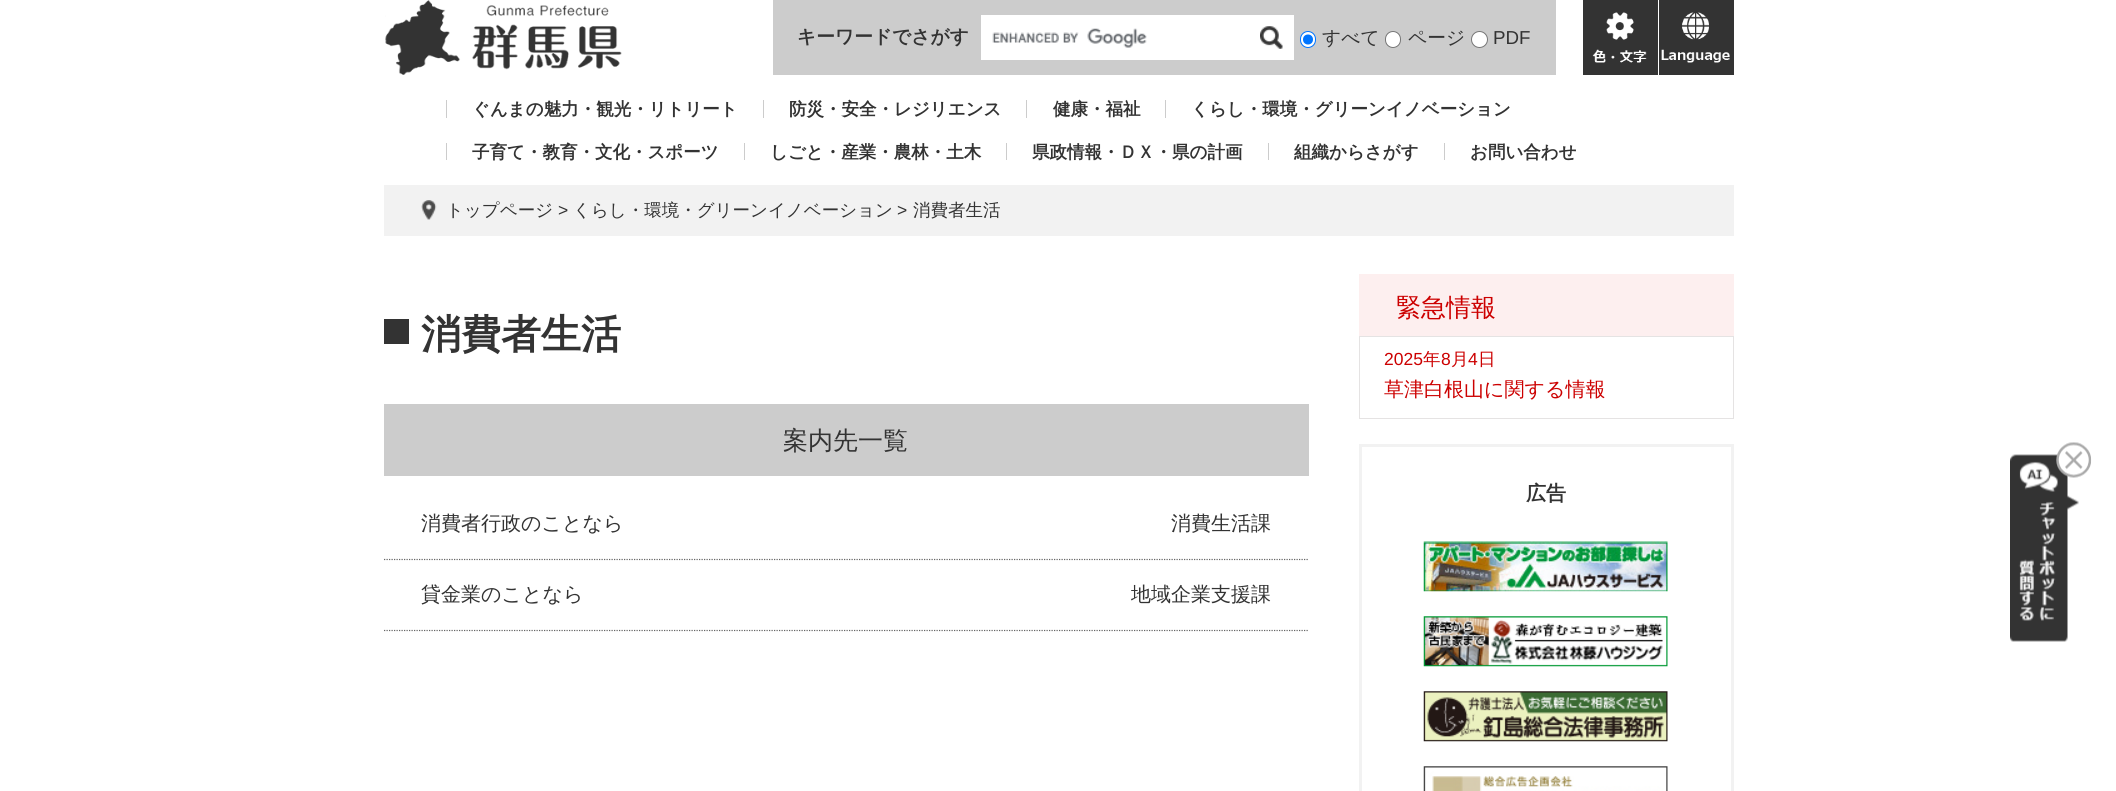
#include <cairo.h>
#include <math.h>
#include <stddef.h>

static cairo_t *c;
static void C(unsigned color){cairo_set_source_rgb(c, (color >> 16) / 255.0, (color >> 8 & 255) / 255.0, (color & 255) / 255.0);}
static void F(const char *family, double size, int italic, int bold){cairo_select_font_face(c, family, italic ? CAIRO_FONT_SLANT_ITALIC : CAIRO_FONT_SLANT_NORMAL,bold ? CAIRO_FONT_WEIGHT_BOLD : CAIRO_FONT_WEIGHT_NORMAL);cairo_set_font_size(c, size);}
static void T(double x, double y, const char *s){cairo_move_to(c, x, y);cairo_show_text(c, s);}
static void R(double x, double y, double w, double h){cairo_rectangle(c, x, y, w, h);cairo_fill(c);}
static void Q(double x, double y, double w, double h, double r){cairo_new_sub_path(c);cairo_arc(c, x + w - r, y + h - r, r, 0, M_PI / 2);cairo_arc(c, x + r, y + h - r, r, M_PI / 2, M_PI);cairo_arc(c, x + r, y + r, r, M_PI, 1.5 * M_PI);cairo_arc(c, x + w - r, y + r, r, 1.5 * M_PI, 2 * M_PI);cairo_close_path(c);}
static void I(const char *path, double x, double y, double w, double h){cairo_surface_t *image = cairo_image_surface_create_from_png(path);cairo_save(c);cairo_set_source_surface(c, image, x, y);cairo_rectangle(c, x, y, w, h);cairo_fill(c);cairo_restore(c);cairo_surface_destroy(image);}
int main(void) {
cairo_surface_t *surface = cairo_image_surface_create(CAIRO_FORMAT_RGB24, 2116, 791);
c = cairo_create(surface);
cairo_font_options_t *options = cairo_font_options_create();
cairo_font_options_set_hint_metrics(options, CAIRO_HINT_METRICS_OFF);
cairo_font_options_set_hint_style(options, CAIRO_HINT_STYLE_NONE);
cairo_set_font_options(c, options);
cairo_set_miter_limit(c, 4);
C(0xffffff);
cairo_paint(c);
I("1.png",385,0,237,75);
C(0xcccccc);
R(773,0,783,75);
F("WenQuanYi Zen Hei",18.75,0,1);
C(0x333333);
T(797,43,"キーワードでさがす");
C(0xffffff);
R(981,15,313,45);
I("2.png",992,28,155,20);
I("3.png",1260,26,23,23);
Q(1300.5,31.5,15,16,7.5);
cairo_fill_preserve(c);
C(0x0075ff);
cairo_set_line_width(c,1);
cairo_stroke(c);
cairo_arc(c,1308,39.5,5,0,2 * M_PI);
cairo_fill(c);
F("WenQuanYi Zen Hei Medium",18.75,0,0);
C(0x333333);
T(1322,44,"すべて");
C(0xffffff);
Q(1385.5,31.5,15,16,7.5);
cairo_fill_preserve(c);
C(0x767676);
cairo_stroke(c);
C(0x333333);
T(1408,44,"ページ");
C(0xffffff);
cairo_new_path(c);
cairo_arc(c,1479.5,39.5,8,0,2 * M_PI);
cairo_fill_preserve(c);
C(0x767676);
cairo_stroke(c);
F("Liberation Sans",18.75,0,0);
C(0x333333);
T(1493,44,"PDF");
R(1583,0,75,75);
I("4.png",1592,12,55,51);
R(1659,0,75,75);
I("5.png",1661,12,69,51);
C(0xcccccc);
R(446,100,1,18);
F("WenQuanYi Zen Hei",17.5,0,1);
C(0x333333);
T(472,115,"ぐんまの魅力・観光・リトリート");
C(0xcccccc);
R(763,100,1,18);
C(0x333333);
T(789,115,"防災・安全・レジリエンス");
C(0xcccccc);
R(1026,100,1,18);
C(0x333333);
T(1053,115,"健康・福祉");
C(0xcccccc);
R(1165,100,1,18);
C(0x333333);
T(1191,115,"くらし・環境・グリーンイノベーション");
C(0xcccccc);
R(446,143,1,17);
C(0x333333);
T(472,158,"子育て・教育・文化・スポーツ");
C(0xcccccc);
R(744,143,1,17);
C(0x333333);
T(770,158,"しごと・産業・農林・土木");
C(0xcccccc);
R(1006,143,1,17);
C(0x333333);
T(1032,158,"県政情報・ＤＸ・県の計画");
C(0xcccccc);
R(1268,143,1,17);
C(0x333333);
T(1294,158,"組織からさがす");
C(0xcccccc);
R(1444,143,1,17);
C(0x333333);
T(1470,158,"お問い合わせ");
C(0xf2f2f2);
R(384,185,1350,51);
I("6.png",421,200,16,20);
F("WenQuanYi Zen Hei Medium",17.5,0,0);
C(0x333333);
T(446,216,"トップページ");
F("Liberation Sans",17.5,0,0);
T(558,216,">");
F("WenQuanYi Zen Hei Medium",17.5,0,0);
T(573,216,"くらし・環境・グリーンイノベーション");
F("Liberation Sans",17.5,0,0);
T(897,216,">");
F("WenQuanYi Zen Hei Medium",17.5,0,0);
T(913,216,"消費者生活");
R(384,319,25,25);
F("WenQuanYi Zen Hei",40,0,1);
T(421,348,"消費者生活");
C(0xcccccc);
R(384,404,925,72);
F("WenQuanYi Zen Hei Medium",25,0,0);
C(0x333333);
T(783,449,"案内先一覧");
cairo_new_path(c);
cairo_move_to(c,384,559.5);
cairo_line_to(c,1309,559.5);
C(0x666666);
cairo_set_line_width(c,1.2);
cairo_set_dash(c,(double[]){1.25,1.25},2,0);
cairo_stroke(c);
F("WenQuanYi Zen Hei Medium",20,0,0);
C(0x333333);
T(421,530,"消費者行政のことなら");
T(1171,530,"消費生活課");
cairo_new_path(c);
cairo_move_to(c,384,630.5);
cairo_line_to(c,1309,630.5);
C(0x666666);
cairo_stroke(c);
C(0x333333);
T(421,601,"貸金業のことなら");
T(1131,601,"地域企業支援課");
C(0xfdefef);
R(1359,274,375,62);
F("WenQuanYi Zen Hei Medium",25,0,0);
C(0xcc0000);
T(1396,316,"緊急情報");
cairo_rectangle(c,1359.5,336.5,374,82);
C(0xe5e3e3);
cairo_set_line_width(c,1);
cairo_set_dash(c,NULL,0,0);
cairo_stroke(c);
F("Liberation Sans",17.5,0,0);
C(0xcc0000);
T(1384,365,"2025");
F("WenQuanYi Zen Hei Medium",17.5,0,0);
T(1423,365,"年");
F("Liberation Sans",17.5,0,0);
T(1441,365,"8");
F("WenQuanYi Zen Hei Medium",17.5,0,0);
T(1451,365,"月");
F("Liberation Sans",17.5,0,0);
T(1468,365,"4");
F("WenQuanYi Zen Hei Medium",17.5,0,0);
T(1478,365,"日");
F("WenQuanYi Zen Hei Medium",20,0,0);
T(1384,396,"草津白根山に関する情報");
cairo_rectangle(c,1360.5,445.5,372,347);
C(0xf2f2f2);
cairo_set_line_width(c,3);
cairo_stroke(c);
F("WenQuanYi Zen Hei",20,0,1);
C(0x333333);
T(1526,500,"広告");
I("7.png",1423,541,245,51);
I("8.png",1423,616,245,51);
I("9.png",1423,691,245,51);
I("10.png",1423,766,245,25);
I("11.png",2010,442,82,200);
cairo_surface_write_to_png(surface, "o.png");
cairo_font_options_destroy(options);
cairo_destroy(c);
cairo_surface_destroy(surface);
return 0;
}
